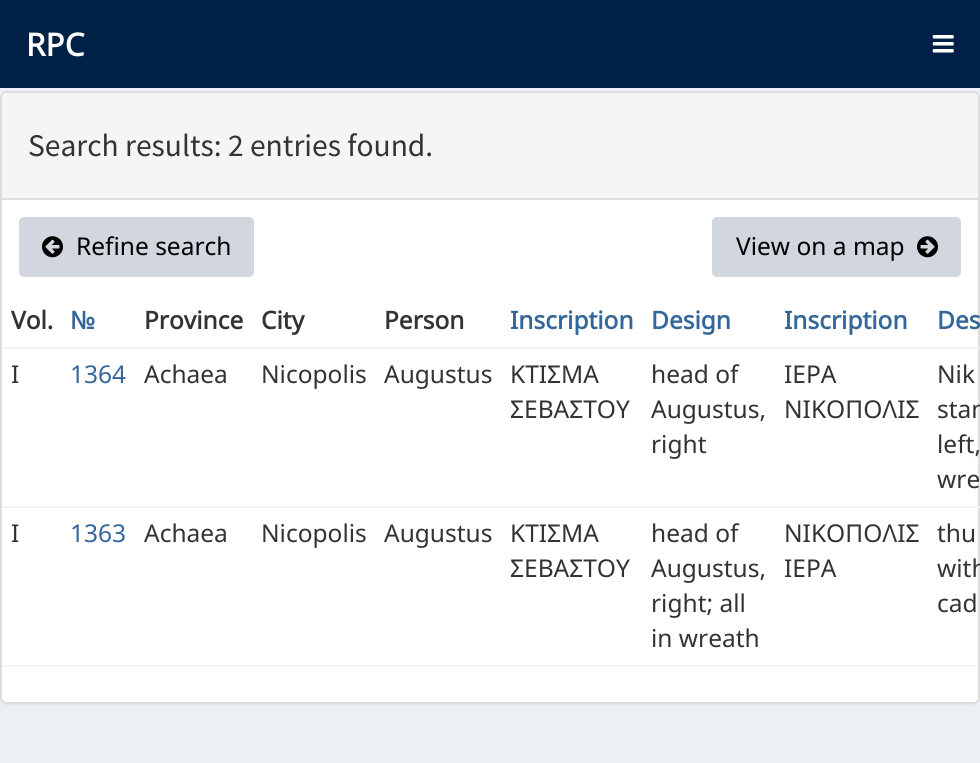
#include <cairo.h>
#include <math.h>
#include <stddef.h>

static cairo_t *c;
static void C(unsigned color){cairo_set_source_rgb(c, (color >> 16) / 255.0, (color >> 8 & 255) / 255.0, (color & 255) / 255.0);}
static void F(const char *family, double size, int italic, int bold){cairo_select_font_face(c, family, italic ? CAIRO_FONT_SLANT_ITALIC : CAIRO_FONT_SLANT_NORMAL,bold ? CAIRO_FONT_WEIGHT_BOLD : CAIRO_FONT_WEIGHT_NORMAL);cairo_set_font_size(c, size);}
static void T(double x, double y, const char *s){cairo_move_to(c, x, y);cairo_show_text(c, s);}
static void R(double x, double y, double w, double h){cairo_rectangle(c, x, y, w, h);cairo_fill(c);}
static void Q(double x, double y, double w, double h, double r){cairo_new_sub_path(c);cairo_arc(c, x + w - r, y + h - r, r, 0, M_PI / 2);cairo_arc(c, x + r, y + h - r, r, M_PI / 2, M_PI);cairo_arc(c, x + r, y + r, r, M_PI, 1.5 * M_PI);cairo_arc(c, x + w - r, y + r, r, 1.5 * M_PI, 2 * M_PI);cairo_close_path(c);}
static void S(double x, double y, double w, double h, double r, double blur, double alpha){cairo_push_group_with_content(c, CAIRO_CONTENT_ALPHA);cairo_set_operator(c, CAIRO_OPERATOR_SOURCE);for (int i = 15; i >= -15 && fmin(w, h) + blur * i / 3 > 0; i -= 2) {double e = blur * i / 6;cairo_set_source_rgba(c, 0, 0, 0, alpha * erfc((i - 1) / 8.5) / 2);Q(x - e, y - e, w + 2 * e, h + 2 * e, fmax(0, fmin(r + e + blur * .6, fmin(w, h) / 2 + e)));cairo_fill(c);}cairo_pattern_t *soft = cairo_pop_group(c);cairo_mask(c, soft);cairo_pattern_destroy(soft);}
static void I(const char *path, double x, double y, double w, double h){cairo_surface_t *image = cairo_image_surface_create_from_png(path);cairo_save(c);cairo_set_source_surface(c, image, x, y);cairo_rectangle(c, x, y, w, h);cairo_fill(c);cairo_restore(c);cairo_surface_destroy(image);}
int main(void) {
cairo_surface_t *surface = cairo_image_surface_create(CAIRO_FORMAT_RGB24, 980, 763);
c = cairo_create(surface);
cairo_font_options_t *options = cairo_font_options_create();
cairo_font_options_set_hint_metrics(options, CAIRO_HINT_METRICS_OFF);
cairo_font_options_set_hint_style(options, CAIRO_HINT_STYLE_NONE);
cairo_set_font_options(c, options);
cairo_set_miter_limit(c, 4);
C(0xecf0f5);
cairo_paint(c);
C(0x012147);
R(0,0,980,88);
F("Noto Sans",31.5,0,1);
C(0xffffff);
T(26,56,"RPC");
I("1.png",932,35,22,18);
C(0x000000);
S(0,93,980,612,7,1,.05);
C(0xffffff);
Q(1,92,978,611,6);
cairo_fill_preserve(c);
C(0xdddddd);
cairo_stroke(c);
C(0xf5f5f5);
cairo_new_path(c);
cairo_move_to(c,7,93);
cairo_line_to(c,973,93);
cairo_curve_to(c,976,93,978,95,978,98);
cairo_line_to(c,978,200);
cairo_line_to(c,2,200);
cairo_line_to(c,2,98);
cairo_curve_to(c,2,95,4,93,7,93);
cairo_close_path(c);
cairo_fill(c);
C(0xdddddd);
R(2,198,976,2);
F("Source Sans Pro",31.5,0,0);
C(0x333333);
T(28,156,"Search results: 2 entries found.");
C(0xd2d6de);
Q(19,217,235,60,5);
cairo_fill(c);
I("2.png",42,236,21,22);
F("Noto Sans",24.5,0,0);
C(0x000000);
T(76,255,"Refine search");
C(0xd2d6de);
Q(712,217,249,60,5);
cairo_fill(c);
C(0x000000);
T(736,255,"View on a map");
I("3.png",917,236,21,22);
F("Noto Sans",24.5,0,1);
C(0x333333);
T(11,329,"Vol.");
C(0x336699);
T(70,329,"№");
C(0x333333);
T(144,329,"Province");
T(261,329,"City");
T(384,329,"Person");
C(0x336699);
T(510,329,"Inscription");
T(651,329,"Design");
T(784,329,"Inscription");
T(937,329,"Des");
F("Noto Sans",24.5,0,0);
C(0x333333);
T(11,383,"I");
C(0x336699);
T(70,383,"1364");
C(0x333333);
T(144,383,"Achaea");
T(261,383,"Nicopolis");
T(384,383,"Augustus");
T(510,383,"ΚΤΙΣΜΑ");
T(510,418,"ΣΕΒΑΣΤΟΥ");
T(651,383,"head of");
T(651,418,"Augustus,");
T(651,453,"right");
T(784,383,"ΙΕΡΑ");
T(784,418,"ΝΙΚΟΠΟΛΙΣ");
C(0xf4f4f4);
R(2,347,978,2);
C(0x333333);
T(937,383,"Nik");
T(937,418,"stan");
T(937,453,"left,");
T(937,488,"wre");
T(11,542,"I");
C(0x336699);
T(70,542,"1363");
C(0x333333);
T(144,542,"Achaea");
T(261,542,"Nicopolis");
T(384,542,"Augustus");
T(510,542,"ΚΤΙΣΜΑ");
T(510,577,"ΣΕΒΑΣΤΟΥ");
T(651,542,"head of");
T(651,577,"Augustus,");
T(651,612,"right; all");
T(651,647,"in wreath");
T(784,542,"ΝΙΚΟΠΟΛΙΣ");
T(784,577,"ΙΕΡΑ");
C(0xf4f4f4);
R(2,506,978,2);
C(0x333333);
T(937,542,"thu");
T(937,577,"with");
T(937,612,"cad");
C(0xffffff);
cairo_new_path(c);
cairo_move_to(c,2,665);
cairo_line_to(c,978,665);
cairo_line_to(c,978,697);
cairo_curve_to(c,978,700,976,702,973,702);
cairo_line_to(c,7,702);
cairo_curve_to(c,4,702,2,700,2,697);
cairo_close_path(c);
cairo_fill(c);
C(0xf4f4f4);
R(2,665,976,2);
cairo_surface_write_to_png(surface, "o.png");
cairo_font_options_destroy(options);
cairo_destroy(c);
cairo_surface_destroy(surface);
return 0;
}
